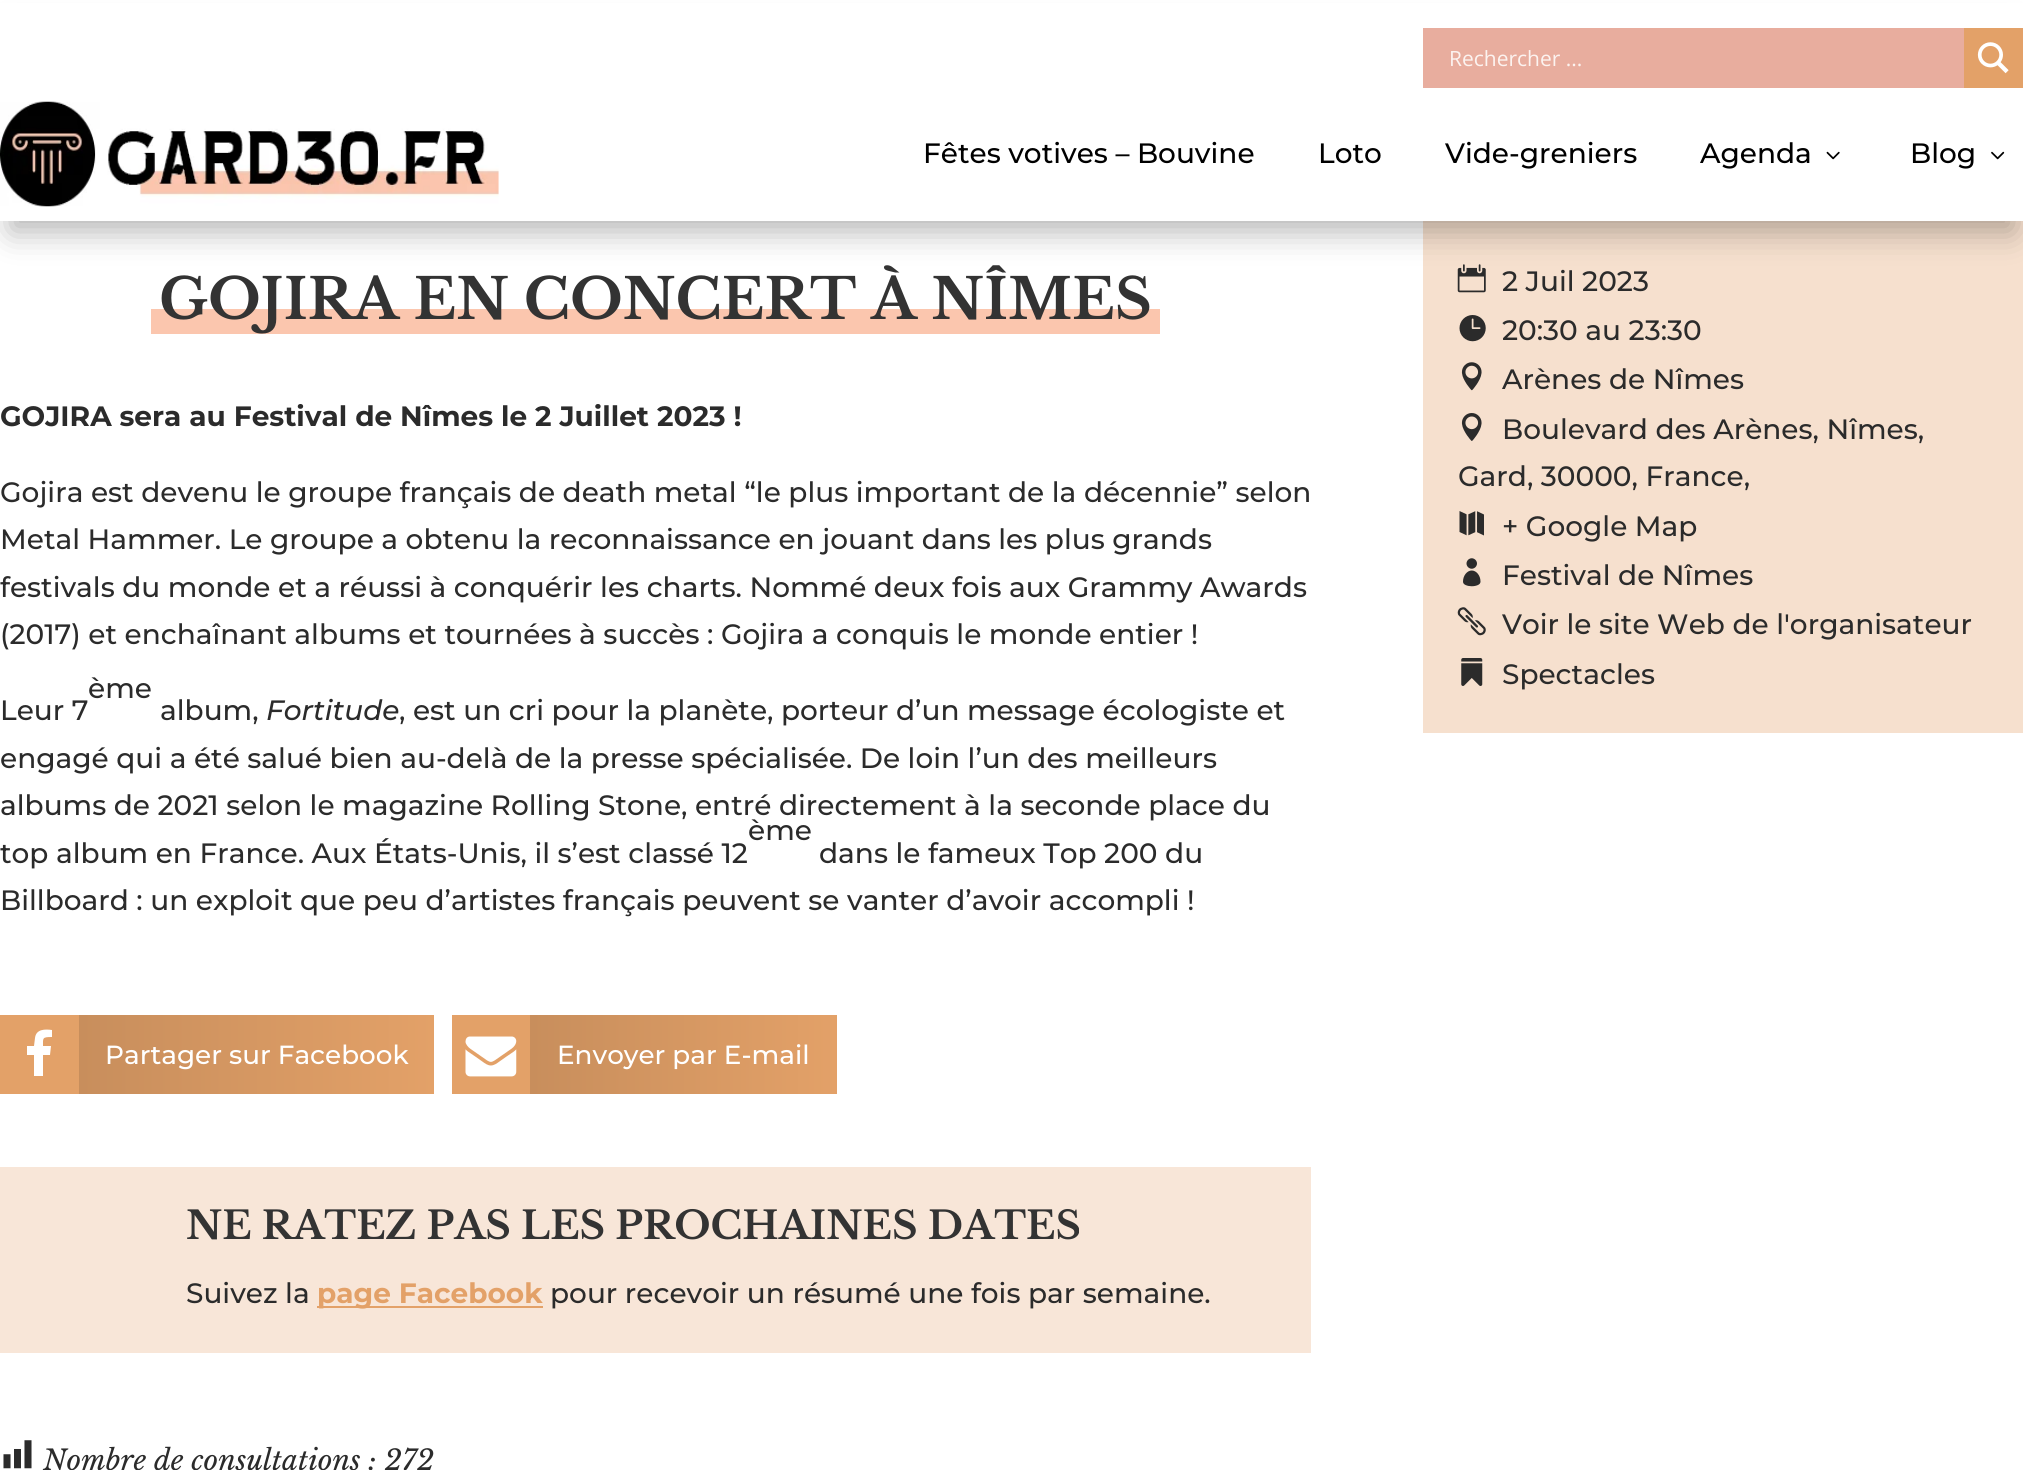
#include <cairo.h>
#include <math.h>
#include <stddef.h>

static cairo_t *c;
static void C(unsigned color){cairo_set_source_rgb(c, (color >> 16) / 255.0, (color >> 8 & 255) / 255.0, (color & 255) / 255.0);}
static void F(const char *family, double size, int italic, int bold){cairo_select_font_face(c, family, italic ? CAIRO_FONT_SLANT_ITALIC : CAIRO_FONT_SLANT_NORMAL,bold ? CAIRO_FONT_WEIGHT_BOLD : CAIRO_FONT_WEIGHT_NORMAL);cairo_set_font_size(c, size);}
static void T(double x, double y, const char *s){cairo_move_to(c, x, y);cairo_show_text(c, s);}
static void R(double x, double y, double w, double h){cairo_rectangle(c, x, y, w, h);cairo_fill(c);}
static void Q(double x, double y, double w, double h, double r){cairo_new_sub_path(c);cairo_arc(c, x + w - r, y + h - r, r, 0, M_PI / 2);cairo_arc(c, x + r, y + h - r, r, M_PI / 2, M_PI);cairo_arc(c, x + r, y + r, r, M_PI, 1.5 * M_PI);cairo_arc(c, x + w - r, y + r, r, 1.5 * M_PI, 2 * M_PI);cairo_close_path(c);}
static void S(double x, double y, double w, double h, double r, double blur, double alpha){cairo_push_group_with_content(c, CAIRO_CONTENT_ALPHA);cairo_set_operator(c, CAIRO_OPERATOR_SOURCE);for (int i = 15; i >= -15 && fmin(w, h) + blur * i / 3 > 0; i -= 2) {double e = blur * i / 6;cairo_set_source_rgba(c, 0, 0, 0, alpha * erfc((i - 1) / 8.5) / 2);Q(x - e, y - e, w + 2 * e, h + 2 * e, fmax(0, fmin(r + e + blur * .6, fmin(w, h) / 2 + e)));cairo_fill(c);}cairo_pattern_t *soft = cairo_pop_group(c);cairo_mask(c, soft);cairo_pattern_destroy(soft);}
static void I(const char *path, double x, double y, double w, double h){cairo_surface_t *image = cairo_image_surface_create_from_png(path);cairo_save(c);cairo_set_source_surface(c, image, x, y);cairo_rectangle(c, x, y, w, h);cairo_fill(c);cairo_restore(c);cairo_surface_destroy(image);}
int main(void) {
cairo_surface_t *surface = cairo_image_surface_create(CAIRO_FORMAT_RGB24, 2023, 1470);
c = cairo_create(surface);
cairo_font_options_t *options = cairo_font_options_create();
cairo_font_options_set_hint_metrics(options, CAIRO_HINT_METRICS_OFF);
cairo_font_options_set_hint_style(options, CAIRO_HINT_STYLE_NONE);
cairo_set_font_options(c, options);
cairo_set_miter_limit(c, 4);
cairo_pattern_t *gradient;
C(0xffffff);
cairo_paint(c);
C(0xf6e0ce);
R(1423,221,600,512);
I("7.png",1457,264,29,29);
C(0x000000);
S(11,32,2002,199,0,16,.3);
C(0xffffff);
R(0,3,2023,218);
C(0xe8ad9e);
R(1423,28,541,60);
F("Open Sans",21,0,0);
C(0xfcf3f0);
T(1449,66,"Rechercher ...");
C(0xe3a168);
R(1964,28,59,60);
I("1.png",1977,42,32,32);
I("2.png",0,101,499,106);
F("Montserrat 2 Thin",28,0,0);
C(0x000000);
T(923,163,"Fêtes votives – Bouvine");
T(1318,163,"Loto");
T(1445,163,"Vide-greniers");
T(1700,163,"Agenda");
I("3.png",1826,151,14,9);
T(1910,163,"Blog");
I("4.png",1991,151,14,9);
gradient = cairo_pattern_create_linear(655,264,655,334);
cairo_pattern_add_color_stop_rgba(gradient,0,1,1,1,1);
cairo_pattern_add_color_stop_rgba(gradient,.65,1,1,1,1);
cairo_pattern_add_color_stop_rgba(gradient,.65,0.984,0.776,0.682,1);
cairo_pattern_add_color_stop_rgba(gradient,1,0.984,0.776,0.682,1);
cairo_set_source(c,gradient);
cairo_pattern_destroy(gradient);
R(151,309,1009,25);
F("Libre Baskerville",56,0,1);
C(0x333333);
T(159,319,"GOJIRA EN CONCERT À NÎMES");
F("Montserrat Thin",28,0,0);
C(0x2b2b2b);
T(0,426,"GOJIRA sera au Festival de Nîmes le 2 Juillet 2023 !");
F("Montserrat 2 Thin",28,0,0);
T(0,502,"Gojira est devenu le groupe français de death metal “le plus important de la décennie” selon");
T(0,549,"Metal Hammer. Le groupe a obtenu la reconnaissance en jouant dans les plus grands");
T(0,597,"festivals du monde et a réussi à conquérir les charts. Nommé deux fois aux Grammy Awards");
T(0,644,"(2017) et enchaînant albums et tournées à succès : Gojira a conquis le monde entier !");
T(88,698,"ème");
T(0,720,"Leur 7");
T(160,720,"album,");
F("Montserrat Thin",28,1,0);
T(266,720,"Fortitude");
F("Montserrat 2 Thin",28,0,0);
T(399,720,", est un cri pour la planète, porteur d’un message écologiste et");
T(0,768,"engagé qui a été salué bien au-delà de la presse spécialisée. De loin l’un des meilleurs");
T(0,815,"albums de 2021 selon le magazine Rolling Stone, entré directement à la seconde place du");
T(748,840,"ème");
T(0,863,"top album en France. Aux États-Unis, il s’est classé 12");
T(819,863,"dans le fameux Top 200 du");
T(0,910,"Billboard : un exploit que peu d’artistes français peuvent se vanter d’avoir accompli !");
C(0xe3a168);
R(0,1015,79,79);
C(0xffffff);
cairo_new_path(c);
cairo_move_to(c,52,1030);
cairo_curve_to(c,45,1029,36,1029,35,1038);
cairo_line_to(c,34,1046);
cairo_line_to(c,27,1046);
cairo_line_to(c,27,1055);
cairo_line_to(c,34,1055);
cairo_line_to(c,34,1076);
cairo_line_to(c,43,1076);
cairo_line_to(c,43,1055);
cairo_line_to(c,50,1055);
cairo_line_to(c,51,1046);
cairo_line_to(c,43,1046);
cairo_curve_to(c,43,1038,42,1037,52,1037);
cairo_close_path(c);
cairo_fill(c);
gradient = cairo_pattern_create_linear(79,1054,434,1054);
cairo_pattern_add_color_stop_rgba(gradient,0,0.784,0.557,0.361,1);
cairo_pattern_add_color_stop_rgba(gradient,1,0.89,0.631,0.408,1);
cairo_set_source(c,gradient);
cairo_pattern_destroy(gradient);
R(79,1015,355,79);
F("Montserrat 2 Thin",26.25,0,0);
C(0xffffff);
T(105,1064,"Partager sur Facebook");
C(0xe3a168);
R(452,1015,78,79);
I("5.png",465,1036,52,41);
gradient = cairo_pattern_create_linear(530,1054,837,1054);
cairo_pattern_add_color_stop_rgba(gradient,0,0.784,0.557,0.361,1);
cairo_pattern_add_color_stop_rgba(gradient,1,0.89,0.631,0.408,1);
cairo_set_source(c,gradient);
cairo_pattern_destroy(gradient);
R(530,1015,307,79);
C(0xffffff);
T(557,1064,"Envoyer par E-mail");
C(0xf8e6d8);
R(0,1167,1311,186);
F("Libre Baskerville",38.5,0,1);
C(0x333333);
T(186,1239,"NE RATEZ PAS LES PROCHAINES DATES");
F("Montserrat 2 Thin",28,0,0);
C(0x2b2b2b);
T(186,1303,"Suivez la");
C(0xe3a168);
R(317,1306,226,2);
F("Montserrat Thin",28,0,0);
T(317,1303,"page Facebook");
F("Montserrat 2 Thin",28,0,0);
C(0x2b2b2b);
T(550,1303,"pour recevoir un résumé une fois par semaine.");
I("6.png",3,1440,29,29);
F("Libre Baskerville",28,1,0);
T(43,1470,"Nombre de consultations : 272");
F("Montserrat 2 Thin",28,0,0);
T(1502,291,"2 Juil 2023");
I("8.png",1459,315,27,27);
T(1502,340,"20:30 au 23:30");
I("9.png",1461,362,21,29);
T(1502,389,"Arènes de Nîmes");
I("10.png",1461,413,21,28);
T(1502,439,"Boulevard des Arènes, Nîmes,");
T(1458,486,"Gard, 30000, France,");
I("11.png",1459,511,25,25);
T(1502,536,"+ Google Map");
I("12.png",1463,558,18,29);
T(1502,585,"Festival de Nîmes");
I("13.png",1457,607,29,29);
T(1502,634,"Voir le site Web de l'organisateur");
I("14.png",1461,658,22,28);
T(1502,684,"Spectacles");
cairo_surface_write_to_png(surface, "o.png");
cairo_font_options_destroy(options);
cairo_destroy(c);
cairo_surface_destroy(surface);
return 0;
}
